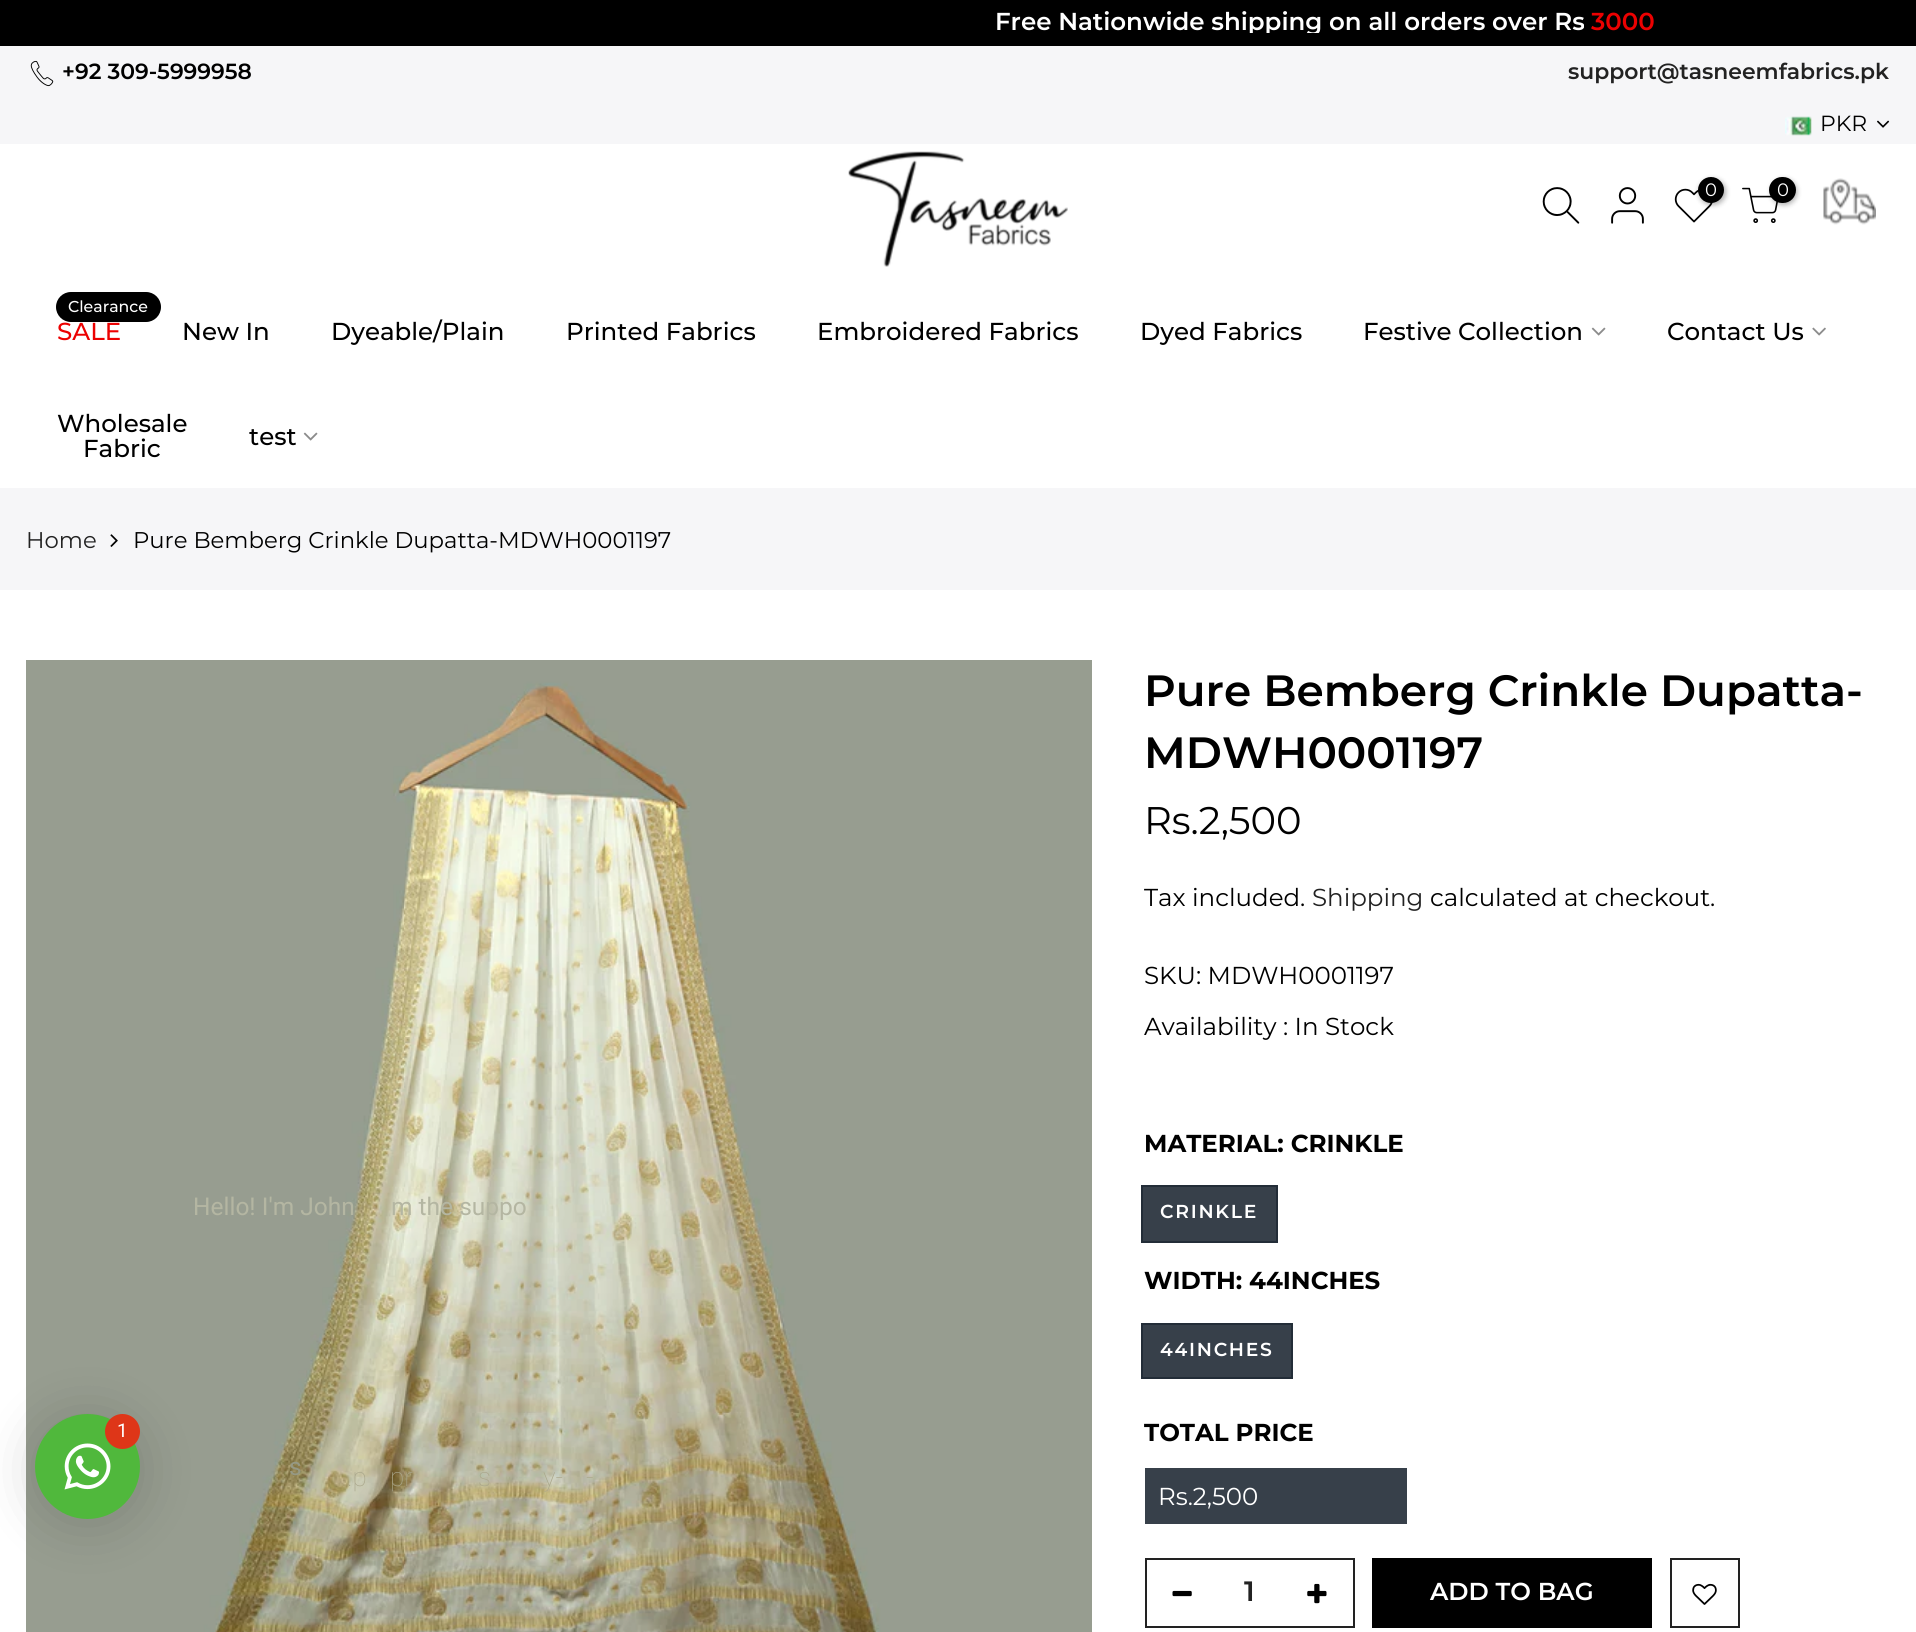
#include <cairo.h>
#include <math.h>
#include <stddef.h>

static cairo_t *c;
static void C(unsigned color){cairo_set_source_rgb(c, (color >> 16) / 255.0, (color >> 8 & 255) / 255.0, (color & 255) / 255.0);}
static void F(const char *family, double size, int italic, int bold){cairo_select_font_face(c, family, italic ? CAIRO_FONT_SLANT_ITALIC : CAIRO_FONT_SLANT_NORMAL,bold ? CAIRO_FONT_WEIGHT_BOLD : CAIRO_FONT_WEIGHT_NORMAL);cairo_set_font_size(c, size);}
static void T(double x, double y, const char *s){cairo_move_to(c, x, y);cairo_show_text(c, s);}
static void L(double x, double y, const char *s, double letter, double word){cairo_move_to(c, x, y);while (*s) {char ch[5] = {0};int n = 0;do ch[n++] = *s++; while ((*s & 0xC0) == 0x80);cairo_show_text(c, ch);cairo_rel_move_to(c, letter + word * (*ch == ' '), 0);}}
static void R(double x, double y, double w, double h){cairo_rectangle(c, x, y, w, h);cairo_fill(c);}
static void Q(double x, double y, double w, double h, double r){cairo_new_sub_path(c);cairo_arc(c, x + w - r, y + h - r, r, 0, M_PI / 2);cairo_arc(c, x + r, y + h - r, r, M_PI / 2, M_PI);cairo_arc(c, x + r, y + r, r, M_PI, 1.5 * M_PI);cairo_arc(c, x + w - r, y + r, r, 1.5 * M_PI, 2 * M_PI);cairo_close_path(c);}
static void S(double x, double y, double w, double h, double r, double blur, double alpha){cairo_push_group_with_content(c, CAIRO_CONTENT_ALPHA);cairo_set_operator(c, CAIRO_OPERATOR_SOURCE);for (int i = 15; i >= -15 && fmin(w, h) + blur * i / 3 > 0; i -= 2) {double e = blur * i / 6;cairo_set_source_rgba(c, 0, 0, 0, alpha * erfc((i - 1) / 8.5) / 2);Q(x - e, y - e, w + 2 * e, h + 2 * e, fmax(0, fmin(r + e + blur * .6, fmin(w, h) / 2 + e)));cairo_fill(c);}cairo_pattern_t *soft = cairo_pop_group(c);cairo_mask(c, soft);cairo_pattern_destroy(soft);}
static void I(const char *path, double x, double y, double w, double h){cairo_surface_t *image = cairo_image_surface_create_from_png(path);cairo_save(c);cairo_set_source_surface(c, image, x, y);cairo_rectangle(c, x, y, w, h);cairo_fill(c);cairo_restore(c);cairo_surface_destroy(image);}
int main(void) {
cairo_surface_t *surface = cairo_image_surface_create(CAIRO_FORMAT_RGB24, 1916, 1632);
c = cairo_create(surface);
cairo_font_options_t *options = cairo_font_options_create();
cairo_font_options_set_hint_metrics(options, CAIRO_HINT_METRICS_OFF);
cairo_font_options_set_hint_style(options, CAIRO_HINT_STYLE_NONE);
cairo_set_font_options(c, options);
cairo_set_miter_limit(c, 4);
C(0xffffff);
cairo_paint(c);
C(0x000000);
R(0,0,1916,46);
cairo_save(c);
cairo_rectangle(c,53,9,1811,24);
cairo_clip(c);
F("Montserrat SemiBold",24.5,0,0);
C(0xffffff);
T(995,30,"Free Nationwide shipping on all orders over Rs");
cairo_restore(c);
F("Montserrat SemiBold",24.5,0,0);
C(0xec0101);
T(1591,30,"3000");
C(0xf6f6f8);
R(0,46,1916,98);
I("1.png",30,60,24,27);
F("Montserrat SemiBold",21.9,0,0);
C(0x000000);
T(62,79,"+92 309-5999958");
C(0x222222);
T(1568,79,"support@tasneemfabrics.pk");
I("2.png",1785,116,27,20);
F("Montserrat",21.9,0,0);
C(0x000000);
T(1820,131,"PKR");
I("3.png",1877,120,13,8);
I("4.png",848,151,220,116);
I("5.png",1542,187,38,37);
I("6.png",1611,187,33,37);
I("7.png",1674,188,39,35);
C(0x000000);
S(1699,179,27,26,13,2.5,.3);
C(0x000000);
cairo_arc(c,1711,190,13,0,2 * M_PI);
cairo_fill(c);
F("Montserrat",18,0,0);
C(0xffffff);
T(1705,196,"0");
I("8.png",1742,187,36,36);
C(0x000000);
S(1771,179,26,26,13,2.5,.3);
C(0x000000);
Q(1769,177,27,26,13);
cairo_fill(c);
C(0xffffff);
T(1777,196,"0");
I("9.png",1823,178,53,47);
C(0x000000);
Q(56,292,105,30,15);
cairo_fill(c);
F("Montserrat Medium",15.75,0,0);
C(0xffffff);
T(68,312,"Clearance");
F("Montserrat Medium",24.5,0,0);
C(0xec0101);
T(57,340,"SALE");
C(0x000000);
T(182,340,"New In");
T(331,340,"Dyeable/Plain");
T(566,340,"Printed Fabrics");
T(817,340,"Embroidered Fabrics");
T(1140,340,"Dyed Fabrics");
T(1363,340,"Festive Collection");
I("10.png",1591,327,15,9);
T(1667,340,"Contact Us");
I("11.png",1812,327,14,9);
T(57,432,"Wholesale");
T(83,457,"Fabric");
T(249,445,"test");
I("10.png",303,432,15,9);
C(0xf6f6f8);
R(0,488,1916,102);
F("Montserrat",22.75,0,0);
C(0x222222);
T(26,548,"Home");
I("12.png",110,534,8,13);
C(0x000000);
T(133,548,"Pure Bemberg Crinkle Dupatta-MDWH0001197");
I("13.png",26,660,1066,972);
F("Montserrat SemiBold",43.75,0,0);
T(1144,706,"Pure Bemberg Crinkle Dupatta-");
T(1144,768,"MDWH0001197");
F("Montserrat",38.5,0,0);
T(1144,834,"Rs.2,500");
F("Montserrat",24.5,0,0);
T(1144,906,"Tax included.");
C(0x222222);
T(1312,906,"Shipping");
C(0x000000);
T(1430,906,"calculated at checkout.");
T(1144,984,"SKU: MDWH0001197");
T(1144,1035,"Availability : In Stock");
F("Montserrat",24.5,0,1);
T(1144,1152,"MATERIAL: CRINKLE");
C(0x37404a);
cairo_rectangle(c,1142,1186,135,56);
cairo_fill_preserve(c);
C(0x232d38);
cairo_stroke(c);
F("Montserrat SemiBold",18.75,0,0);
C(0xffffff);
L(1160,1218,"CRINKLE",1.75,0);
F("Montserrat",24.5,0,1);
C(0x000000);
T(1144,1289,"WIDTH: 44INCHES");
C(0x37404a);
cairo_rectangle(c,1142,1324,150,54);
cairo_fill_preserve(c);
C(0x232d38);
cairo_stroke(c);
F("Montserrat SemiBold",18.75,0,0);
C(0xffffff);
L(1160,1356,"44INCHES",1.75,0);
F("Montserrat",24.5,0,1);
C(0x000000);
T(1144,1441,"TOTAL PRICE");
C(0x37404a);
R(1145,1468,262,56);
F("Montserrat",24.5,0,0);
C(0xffffff);
T(1158,1505,"Rs.2,500");
cairo_rectangle(c,1146,1559,208,68);
C(0x222222);
cairo_stroke(c);
F("Montserrat SemiBold",28,0,0);
T(1244,1601,"1");
I("14.png",1172,1590,20,7);
I("15.png",1307,1583,20,21);
C(0x000000);
R(1372,1558,280,70);
F("Montserrat SemiBold",24.5,0,0);
C(0xffffff);
T(1430,1600,"ADD TO BAG");
cairo_rectangle(c,1671,1559,68,68);
C(0x222222);
cairo_stroke(c);
I("16.png",1692,1583,25,22);
F("Roboto",24.5,0,0);
C(0xb4b6a2);
T(193,1215,"Hello! I'm John");
T(391,1215,"m the suppo");
F("Roboto Thin",26,0,0);
C(0xa9a68a);
T(347,1486,".p");
T(390,1486,"pr");
T(478,1486,"s");
T(543,1486,"y-");
T(586,1486,"-");
C(0x000000);
S(35,1418,105,105,52.5,28,.16);
C(0x50b83c);
cairo_arc(c,87.5,1466.5,52.5,0,2 * M_PI);
cairo_fill(c);
I("17.png",64,1443,47,47);
C(0xde3618);
cairo_arc(c,122.5,1431.5,17.5,0,2 * M_PI);
cairo_fill(c);
F("Roboto",19,0,0);
C(0xffffff);
T(117,1437,"1");
F("Roboto",24.5,0,0);
C(0x969985);
T(289,1475,"s");
cairo_surface_write_to_png(surface, "o.png");
cairo_font_options_destroy(options);
cairo_destroy(c);
cairo_surface_destroy(surface);
return 0;
}
